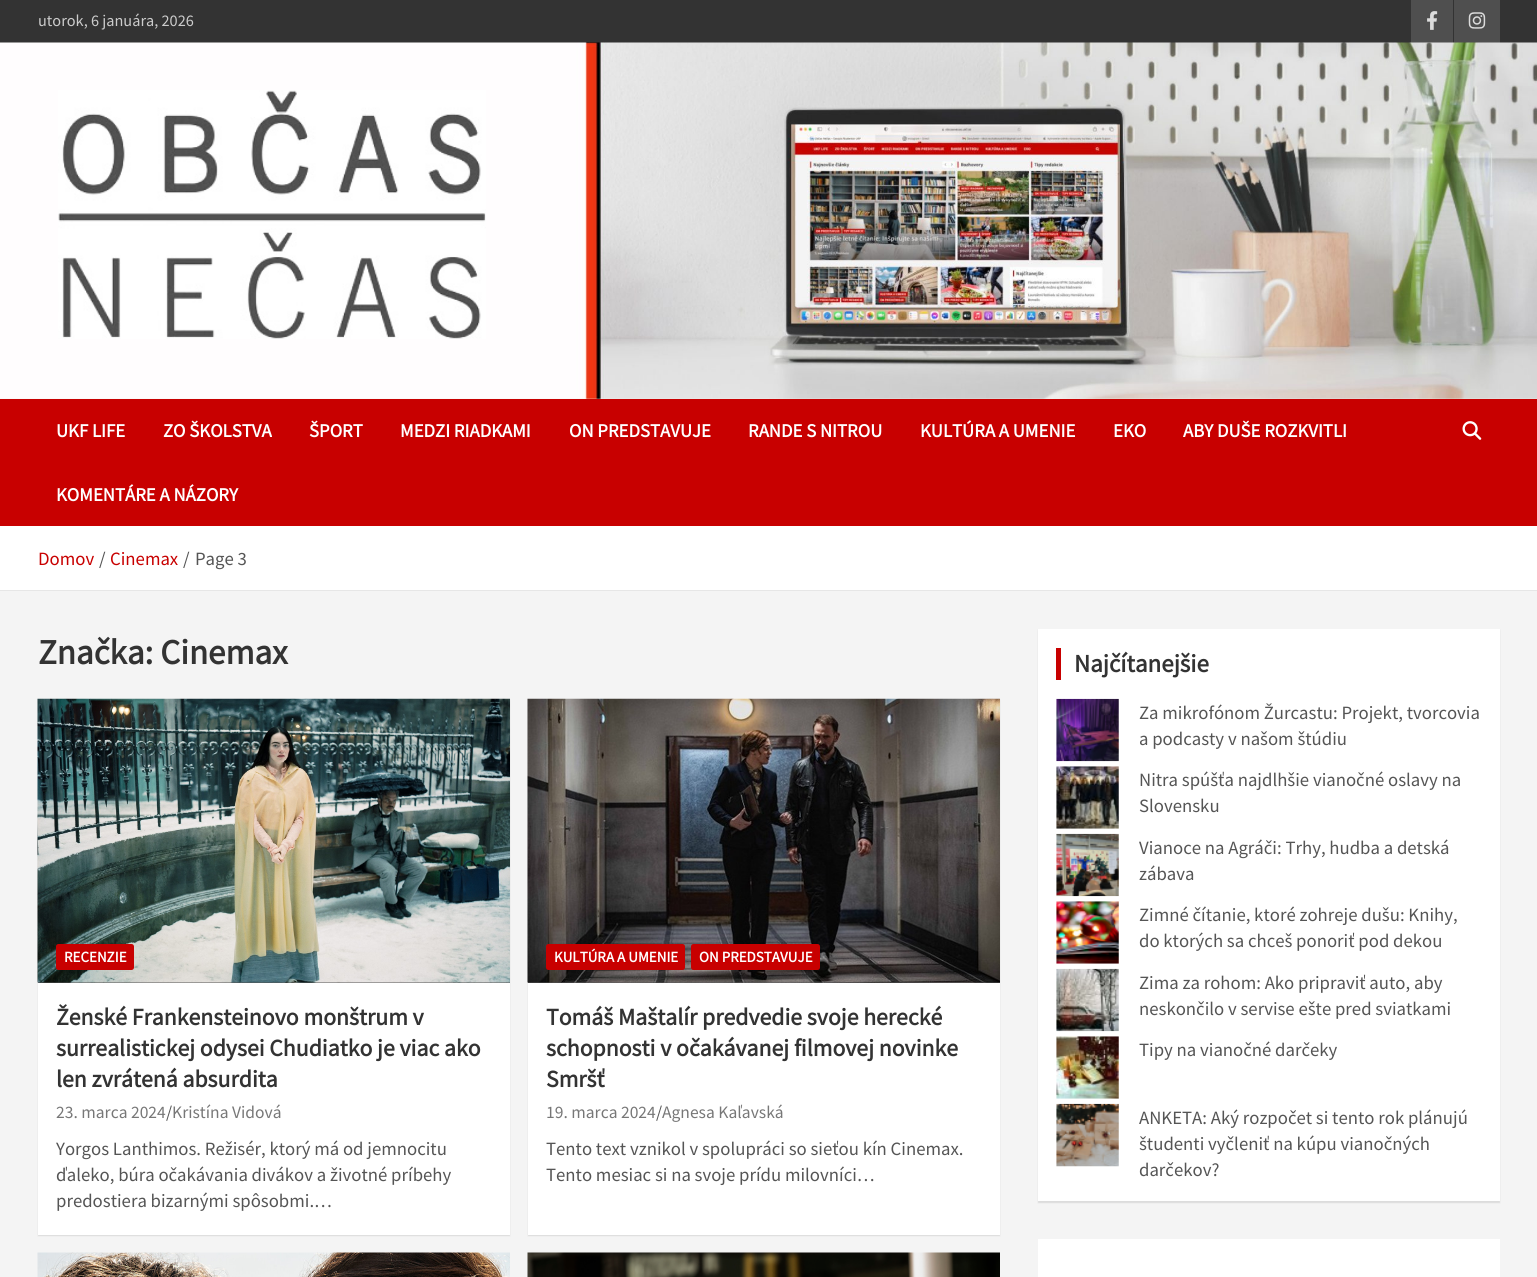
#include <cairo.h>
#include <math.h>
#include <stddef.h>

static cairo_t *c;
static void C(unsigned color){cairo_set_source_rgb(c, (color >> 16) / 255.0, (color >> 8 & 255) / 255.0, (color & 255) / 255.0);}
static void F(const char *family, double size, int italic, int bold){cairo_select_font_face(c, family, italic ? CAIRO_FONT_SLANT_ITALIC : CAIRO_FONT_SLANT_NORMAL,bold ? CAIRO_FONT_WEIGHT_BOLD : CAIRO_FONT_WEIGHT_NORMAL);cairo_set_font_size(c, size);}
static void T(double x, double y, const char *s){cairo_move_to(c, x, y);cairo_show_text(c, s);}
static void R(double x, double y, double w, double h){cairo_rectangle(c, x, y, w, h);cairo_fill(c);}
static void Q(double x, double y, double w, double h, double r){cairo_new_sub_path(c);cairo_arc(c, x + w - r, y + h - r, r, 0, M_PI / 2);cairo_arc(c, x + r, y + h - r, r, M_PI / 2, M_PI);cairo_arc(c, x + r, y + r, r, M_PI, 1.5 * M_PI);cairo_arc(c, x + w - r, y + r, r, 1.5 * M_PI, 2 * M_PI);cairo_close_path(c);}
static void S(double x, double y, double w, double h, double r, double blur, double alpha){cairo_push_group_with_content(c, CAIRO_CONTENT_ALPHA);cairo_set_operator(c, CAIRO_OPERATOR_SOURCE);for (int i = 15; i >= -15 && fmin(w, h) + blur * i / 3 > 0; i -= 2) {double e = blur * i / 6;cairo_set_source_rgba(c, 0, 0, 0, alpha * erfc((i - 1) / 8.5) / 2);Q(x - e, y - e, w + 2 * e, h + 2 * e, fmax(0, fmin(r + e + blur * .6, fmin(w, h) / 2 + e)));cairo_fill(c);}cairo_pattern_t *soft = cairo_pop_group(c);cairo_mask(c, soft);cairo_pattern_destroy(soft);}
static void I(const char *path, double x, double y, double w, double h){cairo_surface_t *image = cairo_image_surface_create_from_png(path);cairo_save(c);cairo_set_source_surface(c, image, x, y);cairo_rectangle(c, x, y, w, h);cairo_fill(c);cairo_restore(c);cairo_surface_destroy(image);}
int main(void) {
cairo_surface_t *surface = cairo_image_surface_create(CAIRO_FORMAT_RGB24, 1537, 1277);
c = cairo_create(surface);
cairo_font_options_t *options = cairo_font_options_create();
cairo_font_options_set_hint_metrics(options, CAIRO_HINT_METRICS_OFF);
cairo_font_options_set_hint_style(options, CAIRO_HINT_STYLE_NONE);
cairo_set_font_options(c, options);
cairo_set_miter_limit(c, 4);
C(0xf4f4f4);
cairo_paint(c);
C(0x333333);
R(0,0,1537,43);
F("Source Sans Pro",16.25,0,0);
C(0xcccccc);
T(38,26,"utorok, 6 januára, 2026");
C(0x4f4f4f);
R(1411,0,42,43);
I("1.png",1427,11,11,19);
R(1454,0,46,43);
I("2.png",1468,12,18,17);
I("3.png",0,42,1537,357);
I("4.png",58,90,428,249);
C(0xc80000);
R(0,399,1537,127);
F("Source Sans Pro",18.75,0,1);
C(0xffffff);
T(56,437,"UKF LIFE");
T(163,437,"ZO ŠKOLSTVA");
T(309,437,"ŠPORT");
T(400,437,"MEDZI RIADKAMI");
T(569,437,"ON PREDSTAVUJE");
T(748,437,"RANDE S NITROU");
T(920,437,"KULTÚRA A UMENIE");
T(1113,437,"EKO");
T(1183,437,"ABY DUŠE ROZKVITLI");
T(56,501,"KOMENTÁRE A NÁZORY");
I("5.png",1462,421,20,19);
R(0,526,1537,64);
C(0xe6e6e6);
R(0,590,1537,1);
F("Source Sans Pro",18.75,0,0);
C(0xc80000);
T(38,565,"Domov");
C(0x555555);
T(99,565,"/");
C(0xc80000);
T(110,565,"Cinemax");
C(0x555555);
T(183,565,"/");
T(195,565,"Page 3");
F("Source Sans Pro",35,0,1);
C(0x333333);
T(38,664,"Značka: Cinemax");
C(0x000000);
S(38,700,472,536,0,.5,.1);
C(0xffffff);
R(38,983,472,252);
C(0x555555);
R(38,982,472,1);
I("6.png",37,698,473,285);
C(0xc80000);
Q(56,944,78,26,2.5);
cairo_fill(c);
F("Source Sans Pro",15,0,1);
C(0xffffff);
T(64,962,"RECENZIE");
F("Source Sans Pro",23.75,0,1);
C(0x333333);
T(56,1025,"Ženské Frankensteinovo monštrum v");
T(56,1056,"surrealistickej odysei Chudiatko je viac ako");
T(56,1087,"len zvrátená absurdita");
F("Source Sans Pro",17.5,0,0);
C(0x777777);
T(56,1118,"23. marca 2024");
C(0x555555);
T(166,1118,"/");
C(0x777777);
T(172,1118,"Kristína Vidová");
F("Source Sans Pro",18.75,0,0);
C(0x555555);
T(56,1155,"Yorgos Lanthimos. Režisér, ktorý má od jemnocitu");
T(56,1181,"ďaleko, búra očakávania divákov a životné príbehy");
T(56,1207,"predostiera bizarnými spôsobmi.…");
C(0x000000);
S(528,700,472,536,0,.5,.1);
C(0xffffff);
R(528,983,472,252);
C(0x555555);
R(528,982,472,1);
I("7.png",527,698,473,285);
C(0xc80000);
Q(546,944,139,26,2.5);
cairo_fill(c);
F("Source Sans Pro",15,0,1);
C(0xffffff);
T(554,962,"KULTÚRA A UMENIE");
C(0xc80000);
Q(691,944,129,26,2.5);
cairo_fill(c);
C(0xffffff);
T(699,962,"ON PREDSTAVUJE");
F("Source Sans Pro",23.75,0,1);
C(0x333333);
T(546,1025,"Tomáš Maštalír predvedie svoje herecké");
T(546,1056,"schopnosti v očakávanej filmovej novinke");
T(546,1087,"Smršť");
F("Source Sans Pro",17.5,0,0);
C(0x777777);
T(546,1118,"19. marca 2024");
C(0x555555);
T(656,1118,"/");
C(0x777777);
T(662,1118,"Agnesa Kaľavská");
F("Source Sans Pro",18.75,0,0);
C(0x555555);
T(546,1155,"Tento text vznikol v spolupráci so sieťou kín Cinemax.");
T(546,1181,"Tento mesiac si na svoje prídu milovníci…");
I("8.png",37,1252,473,25);
I("9.png",527,1252,473,25);
C(0x000000);
S(1038,630,462,573,0,.5,.1);
C(0xffffff);
R(1038,629,462,572);
C(0xc80000);
R(1056,648,5,32);
F("Source Sans Pro",25,0,1);
C(0x333333);
T(1074,672,"Najčítanejšie");
I("10.png",1056,698,63,64);
F("Source Sans Pro",18.75,0,0);
C(0x555555);
T(1139,719,"Za mikrofónom Žurcastu: Projekt, tvorcovia");
T(1139,745,"a podcasty v našom štúdiu");
I("11.png",1056,766,63,63);
T(1139,786,"Nitra spúšťa najdlhšie vianočné oslavy na");
T(1139,812,"Slovensku");
I("12.png",1056,833,63,64);
T(1139,854,"Vianoce na Agráči: Trhy, hudba a detská");
T(1139,880,"zábava");
I("13.png",1056,901,63,63);
T(1139,921,"Zimné čítanie, ktoré zohreje dušu: Knihy,");
T(1139,947,"do ktorých sa chceš ponoriť pod dekou");
I("14.png",1056,968,63,64);
T(1139,989,"Zima za rohom: Ako pripraviť auto, aby");
T(1139,1015,"neskončilo v servise ešte pred sviatkami");
I("15.png",1056,1036,63,63);
T(1139,1056,"Tipy na vianočné darčeky");
I("16.png",1056,1103,63,64);
T(1139,1124,"ANKETA: Aký rozpočet si tento rok plánujú");
T(1139,1150,"študenti vyčleniť na kúpu vianočných");
T(1139,1176,"darčekov?");
C(0xffffff);
R(1038,1239,462,38);
cairo_surface_write_to_png(surface, "o.png");
cairo_font_options_destroy(options);
cairo_destroy(c);
cairo_surface_destroy(surface);
return 0;
}
